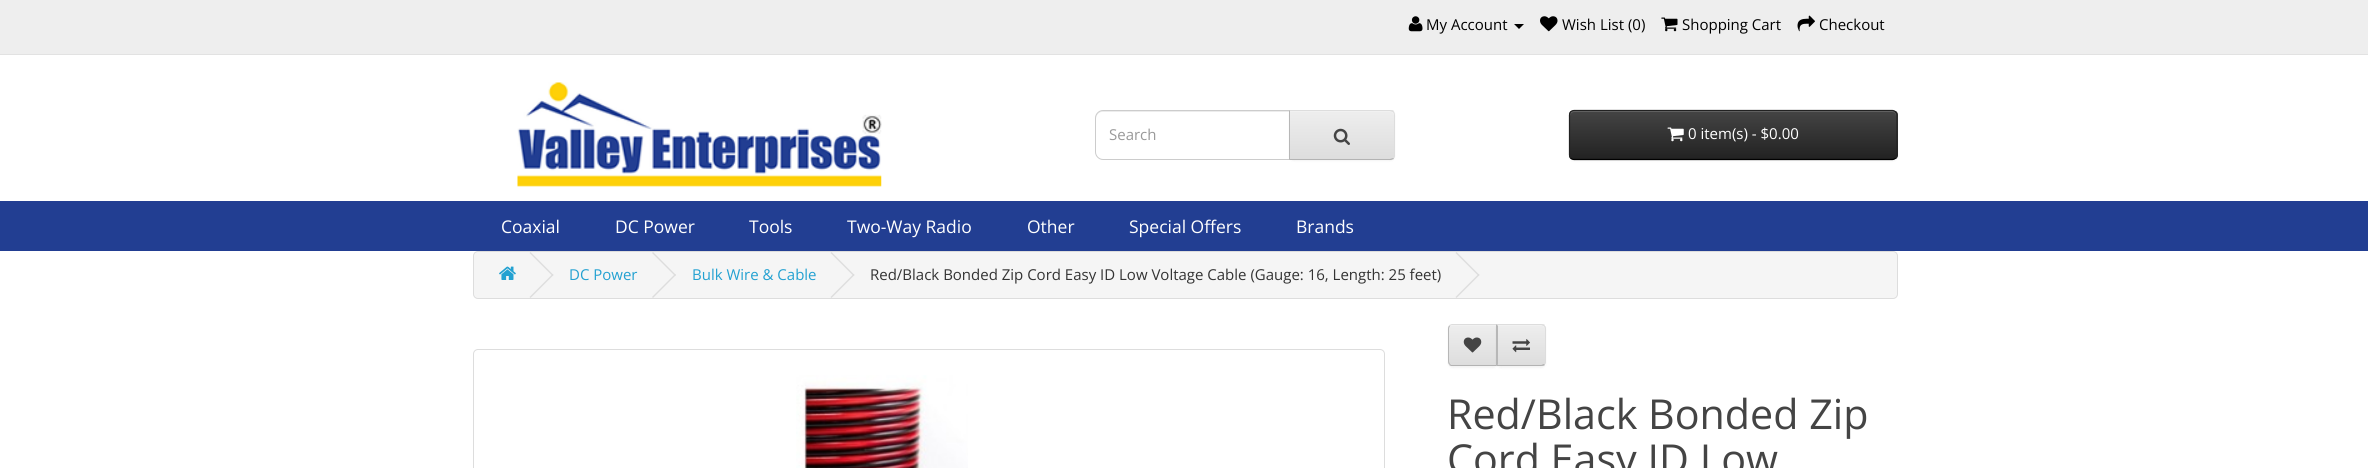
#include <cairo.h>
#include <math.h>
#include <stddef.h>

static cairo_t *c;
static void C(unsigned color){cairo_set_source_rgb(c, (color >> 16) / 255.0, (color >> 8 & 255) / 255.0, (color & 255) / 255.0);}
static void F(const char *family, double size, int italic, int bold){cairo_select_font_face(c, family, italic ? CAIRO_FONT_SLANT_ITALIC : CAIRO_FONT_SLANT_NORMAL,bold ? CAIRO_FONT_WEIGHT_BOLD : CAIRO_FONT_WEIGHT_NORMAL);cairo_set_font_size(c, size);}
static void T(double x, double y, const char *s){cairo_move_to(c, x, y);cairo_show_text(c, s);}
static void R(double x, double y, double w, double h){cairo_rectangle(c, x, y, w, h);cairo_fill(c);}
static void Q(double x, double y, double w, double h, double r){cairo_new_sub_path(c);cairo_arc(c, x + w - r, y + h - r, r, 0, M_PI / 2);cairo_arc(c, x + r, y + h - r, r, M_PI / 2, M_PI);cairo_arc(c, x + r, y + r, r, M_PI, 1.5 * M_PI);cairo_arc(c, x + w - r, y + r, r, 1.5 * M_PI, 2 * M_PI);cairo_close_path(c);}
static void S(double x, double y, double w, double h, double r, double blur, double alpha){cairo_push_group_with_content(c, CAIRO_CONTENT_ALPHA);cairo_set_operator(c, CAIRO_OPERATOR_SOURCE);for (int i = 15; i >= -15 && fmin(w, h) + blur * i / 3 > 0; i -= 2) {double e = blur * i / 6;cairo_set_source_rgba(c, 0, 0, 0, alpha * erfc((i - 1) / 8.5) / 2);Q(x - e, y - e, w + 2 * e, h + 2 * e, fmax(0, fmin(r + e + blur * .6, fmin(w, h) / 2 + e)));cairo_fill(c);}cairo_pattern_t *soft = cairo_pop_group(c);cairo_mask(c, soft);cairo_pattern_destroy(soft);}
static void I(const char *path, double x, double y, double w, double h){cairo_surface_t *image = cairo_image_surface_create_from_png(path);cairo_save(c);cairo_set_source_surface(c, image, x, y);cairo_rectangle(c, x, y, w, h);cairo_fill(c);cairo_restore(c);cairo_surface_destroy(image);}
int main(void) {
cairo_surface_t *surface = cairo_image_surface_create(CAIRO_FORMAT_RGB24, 2368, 468);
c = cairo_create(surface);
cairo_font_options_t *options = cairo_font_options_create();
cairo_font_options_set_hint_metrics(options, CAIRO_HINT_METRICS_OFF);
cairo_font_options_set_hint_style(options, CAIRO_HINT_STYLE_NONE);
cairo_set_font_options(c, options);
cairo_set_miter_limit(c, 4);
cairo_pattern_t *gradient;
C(0xffffff);
cairo_paint(c);
C(0xeeeeee);
R(0,0,2368,54);
C(0xe2e2e2);
R(0,54,2368,1);
I("1.png",1408,16,15,16);
F("Open Sans",15,0,0);
C(0x000000);
T(1426,30,"My Account");
cairo_new_path(c);
cairo_move_to(c,1514,24);
cairo_line_to(c,1524,24);
cairo_line_to(c,1519,29);
cairo_close_path(c);
cairo_fill(c);
I("2.png",1540,16,18,16);
T(1562,30,"Wish List (0)");
I("3.png",1661,17,17,15);
T(1682,30,"Shopping Cart");
I("4.png",1797,15,18,17);
T(1819,30,"Checkout");
I("5.png",517,82,365,105);
C(0xececec);
cairo_new_path(c);
cairo_move_to(c,1102,112);
cairo_line_to(c,1289,112);
cairo_line_to(c,1289,111);
cairo_line_to(c,1102,111);
cairo_curve_to(c,1099,111,1096,114,1096,117);
cairo_line_to(c,1096,119);
cairo_curve_to(c,1096,115,1099,112,1102,112);
cairo_close_path(c);
cairo_fill(c);
cairo_new_path(c);
cairo_move_to(c,1103,110.5);
cairo_line_to(c,1289.5,110.5);
cairo_line_to(c,1289.5,159.5);
cairo_line_to(c,1103,159.5);
cairo_curve_to(c,1099,159.5,1095.5,156,1095.5,152);
cairo_line_to(c,1095.5,118);
cairo_curve_to(c,1095.5,114,1099,110.5,1103,110.5);
cairo_close_path(c);
C(0xcccccc);
cairo_set_line_width(c,1);
cairo_stroke(c);
C(0x999999);
T(1109,140,"Search");
C(0x000000);
S(1289,111,106,50,5,1,.05);
cairo_save(c);
cairo_new_path(c);
cairo_move_to(c,1289,110);
cairo_line_to(c,1390,110);
cairo_curve_to(c,1393,110,1395,112,1395,115);
cairo_line_to(c,1395,155);
cairo_curve_to(c,1395,158,1393,160,1390,160);
cairo_line_to(c,1289,160);
cairo_close_path(c);
cairo_clip(c);
gradient = cairo_pattern_create_linear(1342,111,1342,159);
cairo_pattern_add_color_stop_rgba(gradient,0,0.933,0.933,0.933,1);
cairo_pattern_add_color_stop_rgba(gradient,1,0.867,0.867,0.867,1);
cairo_set_source(c,gradient);
cairo_pattern_destroy(gradient);
R(1290,111,105,48);
cairo_restore(c);
C(0xf1f1f1);
cairo_new_path(c);
cairo_move_to(c,1290,112);
cairo_line_to(c,1390,112);
cairo_curve_to(c,1392,112,1394,114,1394,116);
cairo_line_to(c,1394,115);
cairo_curve_to(c,1394,113,1392,111,1390,111);
cairo_line_to(c,1290,111);
cairo_close_path(c);
cairo_fill(c);
C(0xdddddd);
cairo_new_path(c);
cairo_move_to(c,1289,110);
cairo_line_to(c,1290,111);
cairo_line_to(c,1390,111);
cairo_line_to(c,1393,112);
cairo_line_to(c,1394,111);
cairo_curve_to(c,1393,110,1392,110,1390,110);
cairo_close_path(c);
cairo_fill(c);
cairo_new_path(c);
cairo_move_to(c,1395,155);
cairo_line_to(c,1395,115);
cairo_curve_to(c,1395,114,1394,112,1394,111);
cairo_line_to(c,1393,112);
cairo_curve_to(c,1394,113,1394,114,1394,115);
cairo_line_to(c,1394,155);
cairo_curve_to(c,1394,156,1394,157,1393,158);
cairo_line_to(c,1394,159);
cairo_curve_to(c,1394,158,1395,156,1395,155);
cairo_close_path(c);
cairo_fill(c);
C(0xb3b3b3);
cairo_new_path(c);
cairo_move_to(c,1289,160);
cairo_line_to(c,1391,160);
cairo_line_to(c,1394,159);
cairo_line_to(c,1393,158);
cairo_line_to(c,1390,159);
cairo_line_to(c,1290,159);
cairo_close_path(c);
cairo_fill(c);
C(0xb7b7b7);
cairo_new_path(c);
cairo_move_to(c,1289,110);
cairo_line_to(c,1289,160);
cairo_line_to(c,1290,159);
cairo_line_to(c,1290,111);
cairo_close_path(c);
cairo_fill(c);
I("6.png",1333,128,17,17);
C(0x000000);
S(1569,111,329,50,5,1,.05);
cairo_save(c);
Q(1569,110,329,50,5);
cairo_clip(c);
gradient = cairo_pattern_create_linear(1733,111,1733,159);
cairo_pattern_add_color_stop_rgba(gradient,0,0.267,0.267,0.267,1);
cairo_pattern_add_color_stop_rgba(gradient,1,0.133,0.133,0.133,1);
cairo_set_source(c,gradient);
cairo_pattern_destroy(gradient);
R(1569,111,329,48);
cairo_restore(c);
C(0x696969);
cairo_new_path(c);
cairo_move_to(c,1574,112);
cairo_line_to(c,1892,112);
cairo_curve_to(c,1895,112,1896,114,1896,116);
cairo_line_to(c,1896,115);
cairo_curve_to(c,1896,113,1894,111,1892,111);
cairo_line_to(c,1574,111);
cairo_curve_to(c,1572,111,1570,113,1570,115);
cairo_line_to(c,1570,116);
cairo_curve_to(c,1570,114,1572,112,1574,112);
cairo_close_path(c);
cairo_fill(c);
cairo_new_path(c);
cairo_move_to(c,1895.5,158);
cairo_curve_to(c,1895,159,1893.5,159.5,1892.5,159.5);
cairo_line_to(c,1574,159.5);
cairo_curve_to(c,1572.5,159.5,1571.5,159,1570.5,158);
C(0x000000);
cairo_set_line_width(c,1.2);
cairo_stroke(c);
cairo_new_path(c);
cairo_move_to(c,1570.5,158);
cairo_curve_to(c,1570,157.5,1569.5,156,1569.5,155);
cairo_line_to(c,1569.5,115);
cairo_curve_to(c,1569.5,114,1570,112.5,1570.5,112);
cairo_curve_to(c,1571.5,111,1572.5,110.5,1574,110.5);
cairo_line_to(c,1892.5,110.5);
cairo_curve_to(c,1893.5,110.5,1895,111,1895.5,112);
cairo_curve_to(c,1896.5,112.5,1897,114,1897,115);
cairo_line_to(c,1897,155);
cairo_curve_to(c,1897,156,1896.5,157.5,1895.5,158);
C(0x222222);
cairo_stroke(c);
I("7.png",1667,127,17,15);
C(0xffffff);
T(1688,139,"0 item(s) - $0.00");
C(0x223e92);
R(0,201,2368,50);
F("Open Sans",17.5,0,0);
C(0xffffff);
T(501,233,"Coaxial");
T(615,233,"DC Power");
T(749,233,"Tools");
T(847,233,"Two-Way Radio");
T(1027,233,"Other");
T(1129,233,"Special Offers");
T(1296,233,"Brands");
C(0xf5f5f5);
Q(473.5,251.5,1424,47,4.5);
cairo_fill_preserve(c);
C(0xdddddd);
cairo_set_line_width(c,1);
cairo_stroke(c);
I("8.png",499,266,17,14);
cairo_new_path(c);
cairo_move_to(c,529.5,253);
cairo_line_to(c,530.5,252);
cairo_line_to(c,553.5,275);
cairo_line_to(c,552.5,276);
cairo_close_path(c);
cairo_fill(c);
cairo_new_path(c);
cairo_move_to(c,529.5,297);
cairo_line_to(c,552.5,274);
cairo_line_to(c,553.5,275);
cairo_line_to(c,530.5,298);
cairo_close_path(c);
cairo_fill(c);
F("Open Sans",15,0,0);
C(0x23a1d1);
T(569,280,"DC Power");
C(0xdddddd);
cairo_new_path(c);
cairo_move_to(c,652,253);
cairo_line_to(c,653,252);
cairo_line_to(c,676,275);
cairo_line_to(c,675,276);
cairo_close_path(c);
cairo_fill(c);
cairo_new_path(c);
cairo_move_to(c,652,297);
cairo_line_to(c,675,274);
cairo_line_to(c,676,275);
cairo_line_to(c,653,298);
cairo_close_path(c);
cairo_fill(c);
C(0x23a1d1);
T(692,280,"Bulk Wire & Cable");
C(0xdddddd);
cairo_new_path(c);
cairo_move_to(c,830.5,253);
cairo_line_to(c,831.5,252);
cairo_line_to(c,854.5,275);
cairo_line_to(c,853.5,276);
cairo_close_path(c);
cairo_fill(c);
cairo_new_path(c);
cairo_move_to(c,830.5,297);
cairo_line_to(c,853.5,274);
cairo_line_to(c,854.5,275);
cairo_line_to(c,831.5,298);
cairo_close_path(c);
cairo_fill(c);
C(0x333333);
T(870,280,"Red/Black Bonded Zip Cord Easy ID Low Voltage Cable (Gauge: 16, Length: 25 feet)");
C(0xdddddd);
cairo_new_path(c);
cairo_move_to(c,1455.5,253);
cairo_line_to(c,1456.5,252);
cairo_line_to(c,1479.5,275);
cairo_line_to(c,1478.5,276);
cairo_close_path(c);
cairo_fill(c);
cairo_new_path(c);
cairo_move_to(c,1455.5,297);
cairo_line_to(c,1478.5,274);
cairo_line_to(c,1479.5,275);
cairo_line_to(c,1456.5,298);
cairo_close_path(c);
cairo_fill(c);
Q(473.5,349.5,911,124,4.5);
cairo_stroke(c);
I("9.png",796,375,172,93);
C(0x000000);
S(1448,325,50,43,5,1,.05);
cairo_save(c);
cairo_new_path(c);
cairo_move_to(c,1453,324);
cairo_line_to(c,1498,324);
cairo_line_to(c,1498,366);
cairo_line_to(c,1453,366);
cairo_curve_to(c,1450,366,1448,364,1448,361);
cairo_line_to(c,1448,329);
cairo_curve_to(c,1448,326,1450,324,1453,324);
cairo_close_path(c);
cairo_clip(c);
gradient = cairo_pattern_create_linear(1473,325,1473,365);
cairo_pattern_add_color_stop_rgba(gradient,0,0.933,0.933,0.933,1);
cairo_pattern_add_color_stop_rgba(gradient,1,0.867,0.867,0.867,1);
cairo_set_source(c,gradient);
cairo_pattern_destroy(gradient);
R(1448,325,48,40);
cairo_restore(c);
C(0xf1f1f1);
cairo_new_path(c);
cairo_move_to(c,1452,326);
cairo_line_to(c,1496,326);
cairo_line_to(c,1496,325);
cairo_line_to(c,1453,325);
cairo_curve_to(c,1451,325,1449,327,1449,329);
cairo_line_to(c,1449,330);
cairo_curve_to(c,1449,328,1450,326,1452,326);
cairo_close_path(c);
cairo_fill(c);
C(0xdddddd);
cairo_new_path(c);
cairo_move_to(c,1452,324);
cairo_curve_to(c,1451,324,1450,325,1449,325);
cairo_line_to(c,1450,326);
cairo_line_to(c,1451,325);
cairo_line_to(c,1496,325);
cairo_line_to(c,1497,324);
cairo_close_path(c);
cairo_fill(c);
C(0xb3b3b3);
cairo_new_path(c);
cairo_move_to(c,1497,366);
cairo_line_to(c,1451,366);
cairo_line_to(c,1449,365);
cairo_line_to(c,1450,364);
cairo_line_to(c,1451,365);
cairo_line_to(c,1496,365);
cairo_close_path(c);
cairo_fill(c);
C(0xb7b7b7);
cairo_new_path(c);
cairo_move_to(c,1449,325.5);
cairo_curve_to(c,1448.5,326.5,1448,327.5,1448,329);
cairo_line_to(c,1448,361);
cairo_curve_to(c,1448,362.5,1448.5,363.5,1449,364.5);
cairo_line_to(c,1450,364);
cairo_curve_to(c,1449.5,363,1449,362,1449,361);
cairo_line_to(c,1449,329);
cairo_curve_to(c,1449,328,1449.5,327,1450,326);
cairo_close_path(c);
cairo_fill(c);
I("10.png",1463,337,19,16);
C(0x000000);
S(1496,325,50,43,5,1,.05);
cairo_save(c);
cairo_new_path(c);
cairo_move_to(c,1496,324);
cairo_line_to(c,1541,324);
cairo_curve_to(c,1544,324,1546,326,1546,329);
cairo_line_to(c,1546,361);
cairo_curve_to(c,1546,364,1544,366,1541,366);
cairo_line_to(c,1496,366);
cairo_close_path(c);
cairo_clip(c);
gradient = cairo_pattern_create_linear(1521,325,1521,365);
cairo_pattern_add_color_stop_rgba(gradient,0,0.933,0.933,0.933,1);
cairo_pattern_add_color_stop_rgba(gradient,1,0.867,0.867,0.867,1);
cairo_set_source(c,gradient);
cairo_pattern_destroy(gradient);
R(1497,325,49,40);
cairo_restore(c);
C(0xf1f1f1);
cairo_new_path(c);
cairo_move_to(c,1498,326);
cairo_line_to(c,1541,326);
cairo_curve_to(c,1543,326,1545,328,1545,330);
cairo_line_to(c,1545,329);
cairo_curve_to(c,1545,327,1543,325,1541,325);
cairo_line_to(c,1498,325);
cairo_close_path(c);
cairo_fill(c);
C(0xdddddd);
cairo_new_path(c);
cairo_move_to(c,1498,325);
cairo_line_to(c,1541,325);
cairo_curve_to(c,1542,325,1543,326,1544,326);
cairo_line_to(c,1545,325);
cairo_curve_to(c,1544,324,1542,324,1541,324);
cairo_line_to(c,1496,324);
cairo_line_to(c,1498,326);
cairo_close_path(c);
cairo_fill(c);
cairo_new_path(c);
cairo_move_to(c,1544.5,325.5);
cairo_curve_to(c,1545.5,326,1546,327.5,1546,329);
cairo_line_to(c,1546,361);
cairo_curve_to(c,1546,362.5,1545.5,364,1544.5,364.5);
cairo_line_to(c,1544,364);
cairo_curve_to(c,1544.5,363,1545,362,1545,361);
cairo_line_to(c,1545,329);
cairo_curve_to(c,1545,328,1544.5,327,1544,326);
cairo_close_path(c);
cairo_fill(c);
C(0xb3b3b3);
cairo_new_path(c);
cairo_move_to(c,1545,365);
cairo_curve_to(c,1544,366,1542,366,1541,366);
cairo_line_to(c,1496,366);
cairo_line_to(c,1498,364);
cairo_line_to(c,1498,365);
cairo_line_to(c,1541,365);
cairo_curve_to(c,1542,365,1543,364,1544,364);
cairo_close_path(c);
cairo_fill(c);
C(0xb7b7b7);
cairo_new_path(c);
cairo_move_to(c,1496,324);
cairo_line_to(c,1498,326);
cairo_line_to(c,1498,364);
cairo_line_to(c,1496,366);
cairo_close_path(c);
cairo_fill(c);
I("11.png",1512,339,18,14);
F("Open Sans",41.25,0,0);
C(0x444444);
T(1447,429,"Red/Black Bonded Zip");
T(1447,474,"Cord Easy ID Low");
cairo_surface_write_to_png(surface, "o.png");
cairo_font_options_destroy(options);
cairo_destroy(c);
cairo_surface_destroy(surface);
return 0;
}
